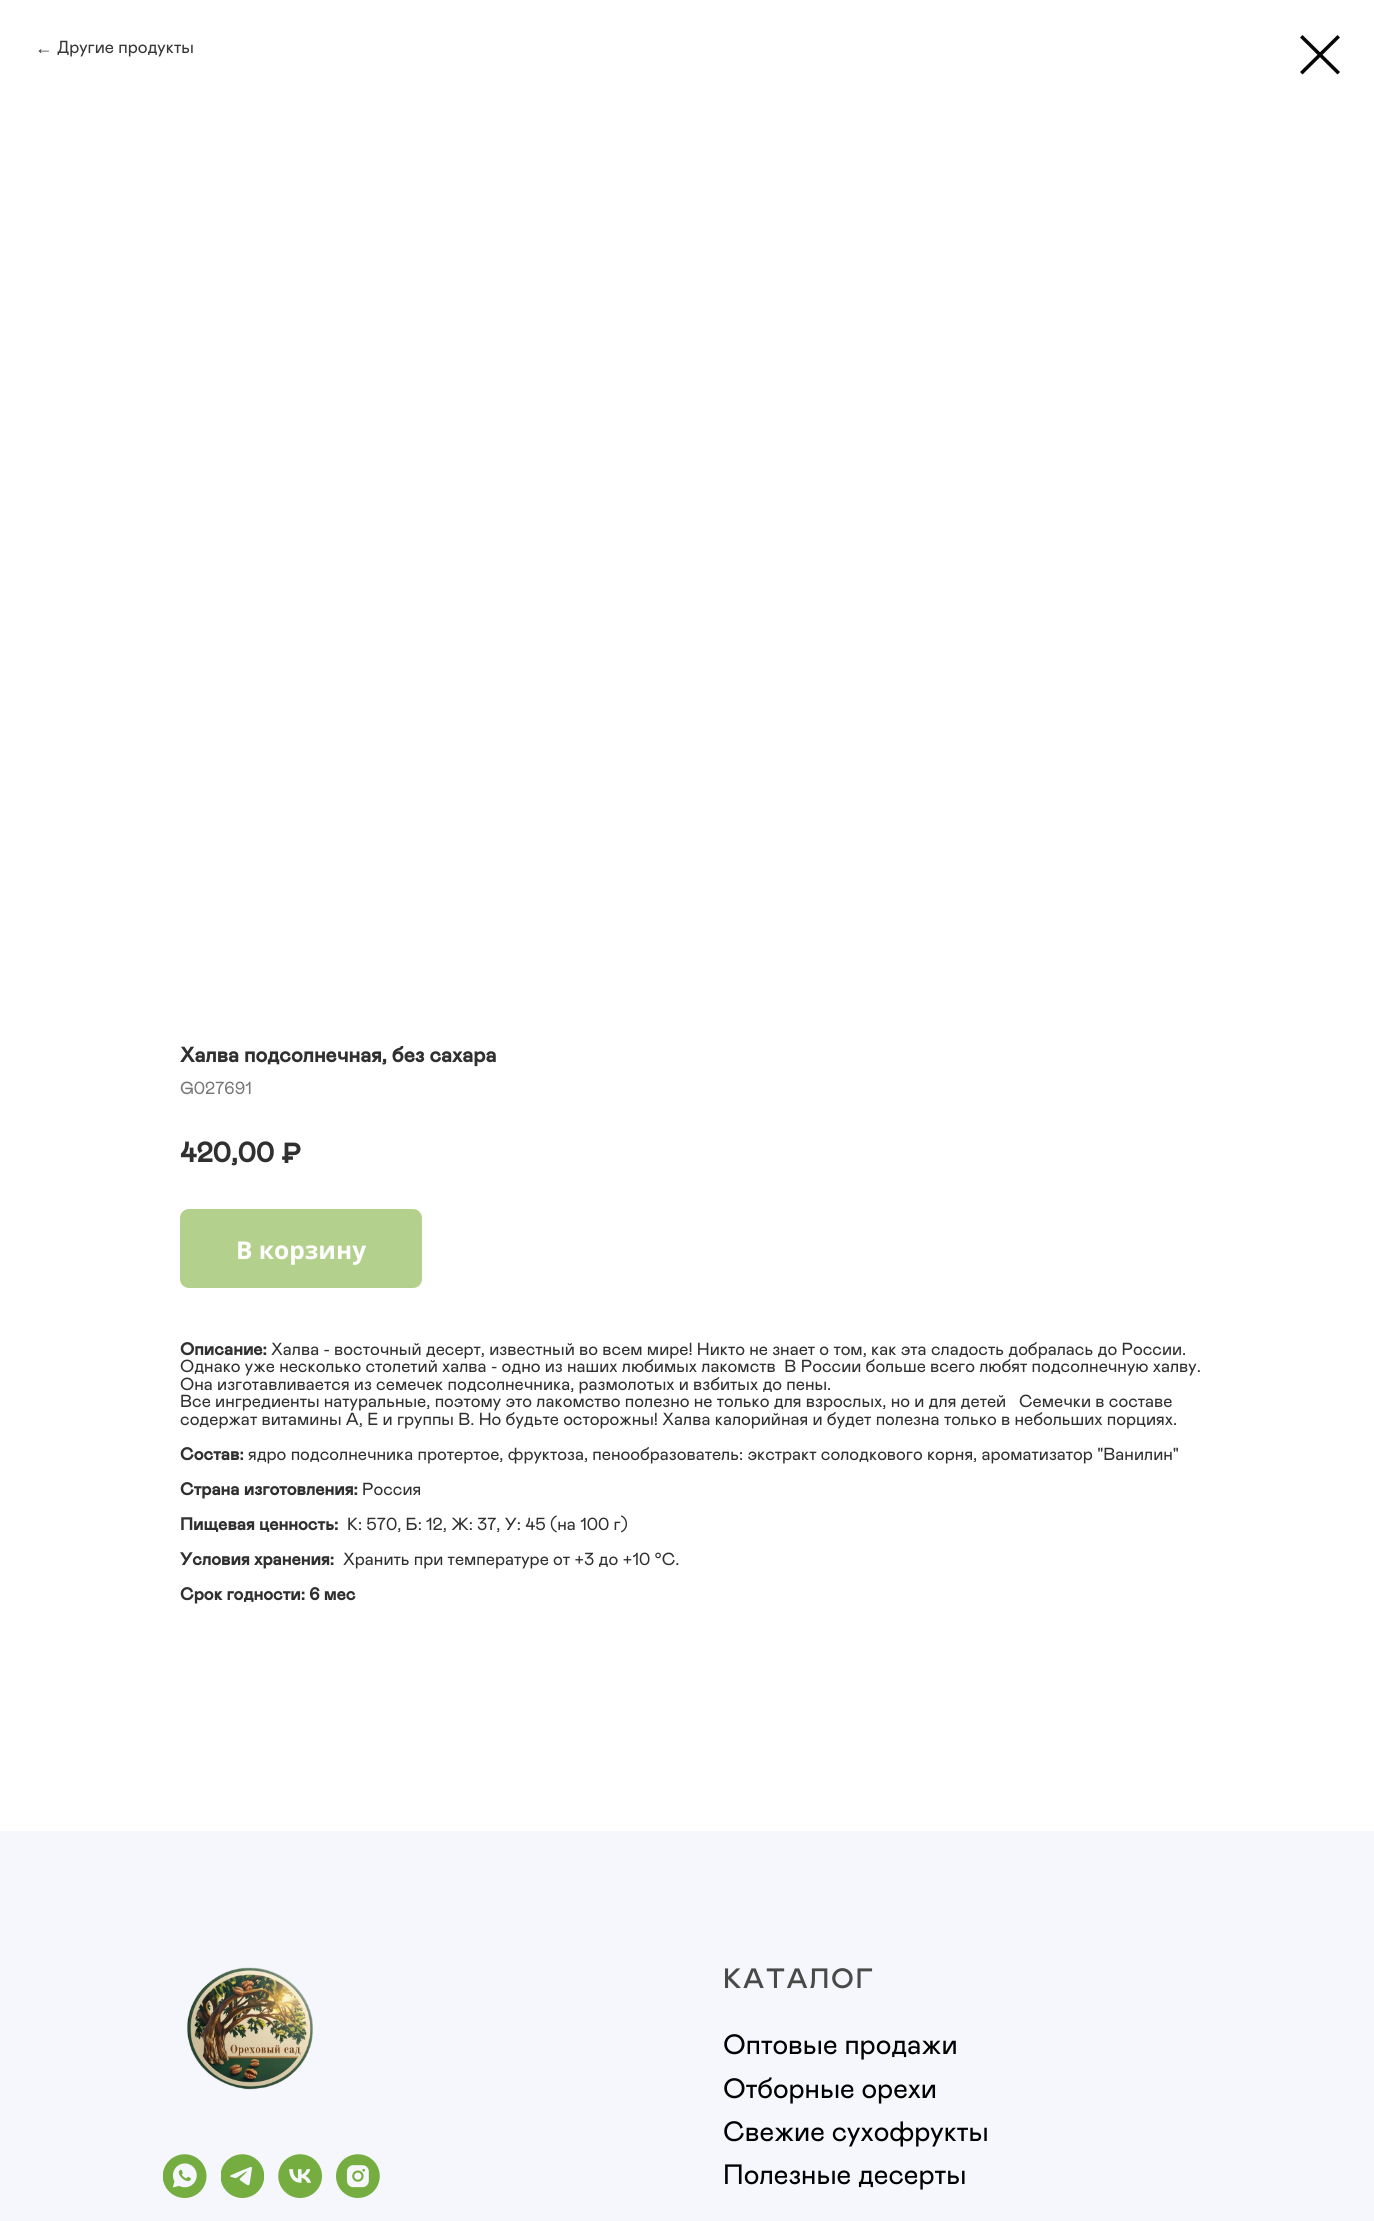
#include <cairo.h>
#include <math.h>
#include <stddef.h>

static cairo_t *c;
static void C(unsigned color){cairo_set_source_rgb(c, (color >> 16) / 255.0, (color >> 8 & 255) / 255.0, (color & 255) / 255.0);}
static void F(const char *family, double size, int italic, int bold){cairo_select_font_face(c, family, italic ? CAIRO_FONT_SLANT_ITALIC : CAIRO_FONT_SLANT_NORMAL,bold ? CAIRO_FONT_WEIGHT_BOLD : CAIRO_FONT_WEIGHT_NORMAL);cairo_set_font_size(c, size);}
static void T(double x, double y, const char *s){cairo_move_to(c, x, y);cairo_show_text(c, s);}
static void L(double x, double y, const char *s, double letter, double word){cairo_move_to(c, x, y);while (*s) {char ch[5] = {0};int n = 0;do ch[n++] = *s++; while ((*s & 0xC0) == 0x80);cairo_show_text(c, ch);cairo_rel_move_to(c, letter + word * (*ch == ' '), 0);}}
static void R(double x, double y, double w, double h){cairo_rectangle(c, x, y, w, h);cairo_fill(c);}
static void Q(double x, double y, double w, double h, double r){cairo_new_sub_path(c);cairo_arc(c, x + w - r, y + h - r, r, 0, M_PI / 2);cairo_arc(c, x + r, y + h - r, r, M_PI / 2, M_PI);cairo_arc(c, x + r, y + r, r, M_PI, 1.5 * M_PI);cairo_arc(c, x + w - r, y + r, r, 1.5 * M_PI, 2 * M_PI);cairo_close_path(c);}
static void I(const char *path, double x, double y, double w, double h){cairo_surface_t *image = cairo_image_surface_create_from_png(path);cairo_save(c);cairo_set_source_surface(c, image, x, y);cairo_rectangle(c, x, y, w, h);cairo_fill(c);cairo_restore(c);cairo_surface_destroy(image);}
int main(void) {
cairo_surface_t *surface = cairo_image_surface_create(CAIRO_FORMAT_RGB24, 1374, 2221);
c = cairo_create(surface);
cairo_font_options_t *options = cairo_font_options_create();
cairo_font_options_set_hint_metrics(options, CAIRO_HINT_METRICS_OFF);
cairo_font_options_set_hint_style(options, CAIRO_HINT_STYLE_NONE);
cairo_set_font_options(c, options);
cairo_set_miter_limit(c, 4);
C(0xffffff);
cairo_paint(c);
F("Liberation Sans",17.5,0,0);
C(0x373737);
T(35,54,"←");
F("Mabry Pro",17.5,0,0);
T(57,53,"Другие продукты");
C(0x050505);
cairo_set_fill_rule(c,CAIRO_FILL_RULE_EVEN_ODD);
cairo_new_path(c);
cairo_move_to(c,1300,37.5);
cairo_line_to(c,1302.5,35);
cairo_line_to(c,1340,72);
cairo_line_to(c,1337.5,74.5);
cairo_close_path(c);
cairo_fill(c);
cairo_new_path(c);
cairo_move_to(c,1337.5,35);
cairo_line_to(c,1340,37.5);
cairo_line_to(c,1302.5,74.5);
cairo_line_to(c,1300,72);
cairo_close_path(c);
cairo_fill(c);
F("Mabry Pro",21,0,1);
C(0x303030);
T(180,1062,"Халва подсолнечная, без сахара");
F("Mabry Pro",17.5,0,0);
C(0x777777);
T(180,1094,"G027691");
F("Mabry Pro",28,0,1);
C(0x303030);
T(180,1162,"420,00");
T(282,1163,"₽");
C(0xb4d08d);
Q(180,1209,242,79,9);
cairo_fill(c);
F("Open Sans",24.5,0,1);
C(0xffffff);
T(236,1259,"В корзину");
F("Mabry Pro",17.5,0,1);
C(0x303030);
T(180,1355,"Описание:");
F("Mabry Pro",17.5,0,0);
T(271,1355,"Халва - восточный десерт, известный во всем мире! Никто не знает о том, как эта сладость добралась до России.");
T(180,1372,"Однако уже несколько столетий халва - одно из наших любимых лакомств  В России больше всего любят подсолнечную халву.");
T(180,1390,"Она изготавливается из семечек подсолнечника, размолотых и взбитых до пены.");
T(180,1407,"Все ингредиенты натуральные, поэтому это лакомство полезно не только для взрослых, но и для детей   Семечки в составе");
T(180,1425,"содержат витамины А, Е и группы В. Но будьте осторожны! Халва калорийная и будет полезна только в небольших порциях.");
F("Mabry Pro",17.5,0,1);
T(180,1460,"Состав:");
F("Mabry Pro",17.5,0,0);
T(248,1460,"ядро подсолнечника протертое, фруктоза, пенообразователь: экстракт солодкового корня, ароматизатор \"Ванилин\"");
F("Mabry Pro",17.5,0,1);
T(180,1495,"Страна изготовления:");
F("Mabry Pro",17.5,0,0);
T(362,1495,"Россия");
F("Mabry Pro",17.5,0,1);
T(180,1530,"Пищевая ценность:");
F("Mabry Pro",17.5,0,0);
T(347,1530,"К: 570, Б: 12, Ж: 37, У: 45 (на 100 г)");
F("Mabry Pro",17.5,0,1);
T(180,1565,"Условия хранения:");
F("Mabry Pro",17.5,0,0);
T(343,1565,"Хранить при температуре от +3 до +10 °С.");
F("Mabry Pro",17.5,0,1);
T(180,1600,"Срок годности: 6 мес");
C(0xf5f7fc);
R(0,1831,1374,390);
I("1.png",187,1967,126,123);
I("2.png",163,2154,44,44);
I("3.png",221,2154,43,44);
I("4.png",278,2154,44,44);
I("5.png",336,2154,44,44);
F("Mabry Pro Medium",28,0,0);
C(0x494949);
L(723,1988,"КАТАЛОГ",1.75,0);
F("Mabry Pro",28,0,0);
C(0x000000);
T(723,2054,"Оптовые продажи");
T(723,2098,"Отборные орехи");
T(723,2141,"Свежие сухофрукты");
T(723,2184,"Полезные десерты");
cairo_surface_write_to_png(surface, "o.png");
cairo_font_options_destroy(options);
cairo_destroy(c);
cairo_surface_destroy(surface);
return 0;
}
